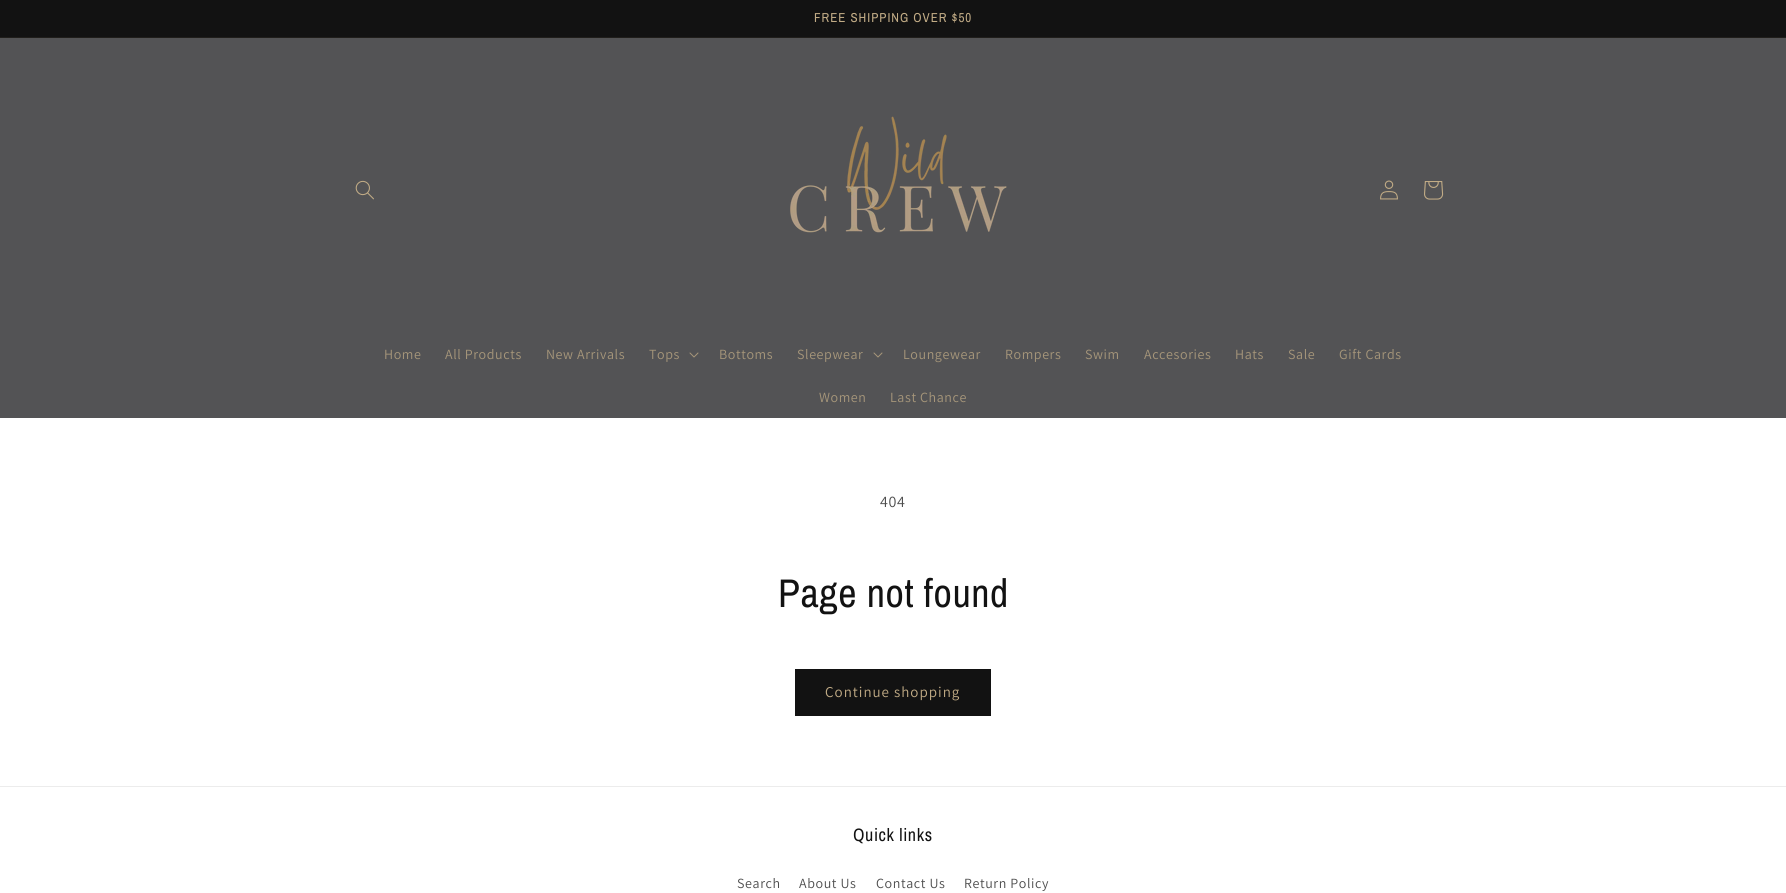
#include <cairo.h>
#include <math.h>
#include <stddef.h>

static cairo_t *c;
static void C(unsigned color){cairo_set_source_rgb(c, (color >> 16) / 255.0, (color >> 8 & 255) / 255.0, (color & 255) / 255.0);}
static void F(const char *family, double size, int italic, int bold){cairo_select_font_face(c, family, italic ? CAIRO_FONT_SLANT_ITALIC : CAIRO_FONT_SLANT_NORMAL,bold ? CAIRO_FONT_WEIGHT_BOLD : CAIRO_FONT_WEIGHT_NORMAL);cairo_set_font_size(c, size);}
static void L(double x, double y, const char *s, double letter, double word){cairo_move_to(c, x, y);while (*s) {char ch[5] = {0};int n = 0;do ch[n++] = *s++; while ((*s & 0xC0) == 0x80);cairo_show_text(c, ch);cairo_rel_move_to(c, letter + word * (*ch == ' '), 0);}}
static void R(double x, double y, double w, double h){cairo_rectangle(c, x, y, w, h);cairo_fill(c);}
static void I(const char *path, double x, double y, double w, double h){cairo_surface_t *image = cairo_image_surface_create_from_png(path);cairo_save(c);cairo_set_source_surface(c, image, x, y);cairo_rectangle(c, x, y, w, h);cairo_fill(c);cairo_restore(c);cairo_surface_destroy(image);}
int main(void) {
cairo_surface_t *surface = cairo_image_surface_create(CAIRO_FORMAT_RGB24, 1786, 893);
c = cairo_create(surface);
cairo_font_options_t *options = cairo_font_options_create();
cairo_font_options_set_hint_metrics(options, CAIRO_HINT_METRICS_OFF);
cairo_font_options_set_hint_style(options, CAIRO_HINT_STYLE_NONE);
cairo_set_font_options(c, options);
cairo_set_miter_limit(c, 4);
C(0xffffff);
cairo_paint(c);
C(0x121212);
R(0,0,1786,37);
C(0x201e1b);
R(0,37,1786,1);
F("Archivo Narrow",13,0,0);
C(0xc2ac86);
L(814,22,"FREE SHIPPING OVER $50",1,0);
C(0x535355);
R(0,38,1786,380);
I("1.png",355,180,19,20);
I("2.png",790,116,217,117);
I("3.png",1380,180,18,20);
I("4.png",1424,181,20,19);
F("Assistant",14,0,0);
C(0xa6967a);
L(384,359,"Home",.6,0);
L(445,359,"All Products",.6,0);
L(546,359,"New Arrivals",.6,0);
L(649,359,"Tops",.6,0);
I("5.png",689,352,10,6);
L(719,359,"Bottoms",.6,0);
L(797,359,"Sleepwear",.6,0);
I("5.png",873,352,10,6);
L(903,359,"Loungewear",.6,0);
L(1005,359,"Rompers",.6,0);
L(1085,359,"Swim",.6,0);
L(1144,359,"Accesories",.6,0);
L(1235,359,"Hats",.6,0);
L(1288,359,"Sale",.6,0);
L(1339,359,"Gift Cards",.6,0);
L(819,402,"Women",.6,0);
L(890,402,"Last Chance",.6,0);
F("Assistant",16,0,0);
C(0x4d4d4d);
L(880,507,"404",.6,0);
F("Archivo Narrow",40,0,0);
C(0x121212);
L(778,607,"Page not found",.6,0);
R(795,669,196,47);
F("Assistant",15,0,0);
C(0xc2ac86);
L(825,697,"Continue shopping",1,0);
C(0xececec);
R(0,786,1786,1);
F("Archivo Narrow",18,0,0);
C(0x121212);
L(853,841,"Quick links",.6,0);
F("Assistant",14,0,0);
C(0x4d4d4d);
L(737,888,"Search",.6,0);
L(799,888,"About Us",.6,0);
L(876,888,"Contact Us",.6,0);
L(964,888,"Return Policy",.6,0);
cairo_surface_write_to_png(surface, "o.png");
cairo_font_options_destroy(options);
cairo_destroy(c);
cairo_surface_destroy(surface);
return 0;
}
